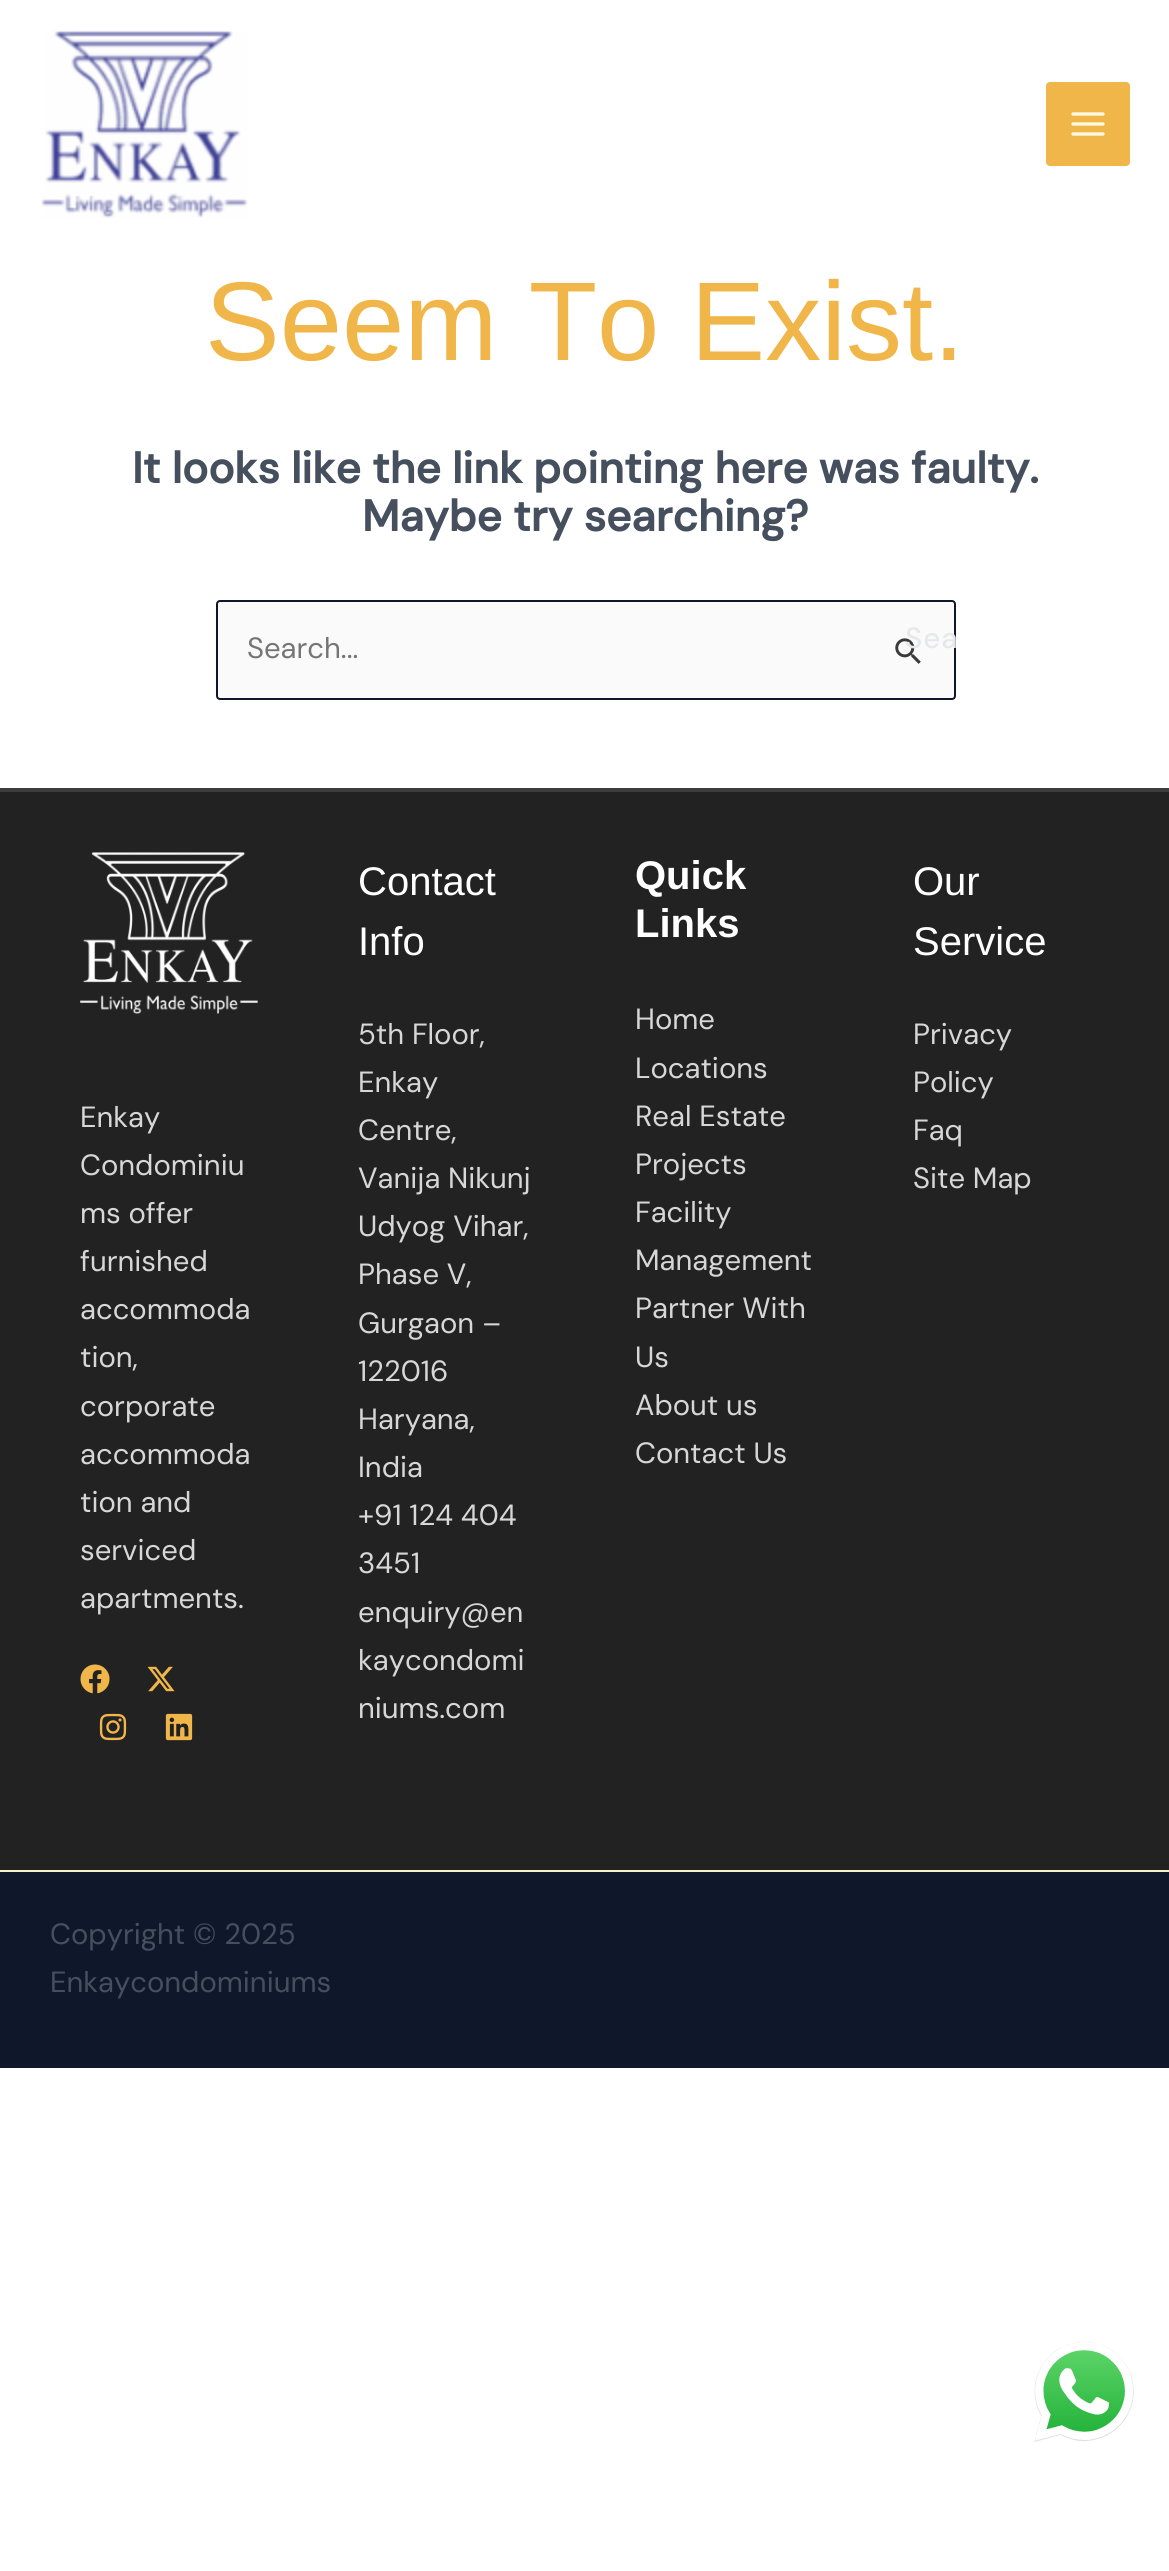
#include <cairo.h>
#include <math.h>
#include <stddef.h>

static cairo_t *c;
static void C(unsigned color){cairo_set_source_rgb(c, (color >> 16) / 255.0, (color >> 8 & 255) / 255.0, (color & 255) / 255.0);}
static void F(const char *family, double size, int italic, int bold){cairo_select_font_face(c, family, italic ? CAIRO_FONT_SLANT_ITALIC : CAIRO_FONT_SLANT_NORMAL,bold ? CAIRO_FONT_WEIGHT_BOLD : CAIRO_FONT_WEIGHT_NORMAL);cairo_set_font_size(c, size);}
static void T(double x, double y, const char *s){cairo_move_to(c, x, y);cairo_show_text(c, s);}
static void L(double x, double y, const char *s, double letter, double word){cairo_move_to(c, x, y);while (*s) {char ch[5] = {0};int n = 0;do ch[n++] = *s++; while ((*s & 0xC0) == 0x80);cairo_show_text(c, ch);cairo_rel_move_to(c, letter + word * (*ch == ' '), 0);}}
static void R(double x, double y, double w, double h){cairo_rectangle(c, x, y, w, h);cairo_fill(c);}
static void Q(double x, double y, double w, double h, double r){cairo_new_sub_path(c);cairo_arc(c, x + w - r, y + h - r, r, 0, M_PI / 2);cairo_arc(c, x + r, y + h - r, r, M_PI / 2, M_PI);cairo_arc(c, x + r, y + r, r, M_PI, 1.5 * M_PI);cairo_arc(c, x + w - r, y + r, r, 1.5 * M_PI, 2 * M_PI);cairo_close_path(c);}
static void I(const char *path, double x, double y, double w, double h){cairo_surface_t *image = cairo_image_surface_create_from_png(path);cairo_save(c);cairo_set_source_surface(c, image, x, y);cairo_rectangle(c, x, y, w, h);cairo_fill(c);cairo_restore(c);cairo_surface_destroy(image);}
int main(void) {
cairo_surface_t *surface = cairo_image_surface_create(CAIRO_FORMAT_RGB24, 1169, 2571);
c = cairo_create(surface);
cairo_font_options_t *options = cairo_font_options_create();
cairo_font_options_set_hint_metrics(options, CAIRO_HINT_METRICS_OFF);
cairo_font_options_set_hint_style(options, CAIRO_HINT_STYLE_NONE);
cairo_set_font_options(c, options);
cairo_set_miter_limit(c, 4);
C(0xffffff);
cairo_paint(c);
I("1.png",41,30,207,188);
C(0xf1b64a);
Q(1046,82,84,84,4);
cairo_fill(c);
I("2.png",1071,112,34,24);
F("Liberation Sans",112,0,0);
T(205,360,"Seem To Exist.");
F("DM Sans",43.75,0,1);
C(0x454f5e);
T(132,483,"It looks like the link pointing here was faulty.");
T(362,531,"Maybe try searching?");
C(0xfafafa);
Q(217,601,738,98,3);
cairo_fill_preserve(c);
C(0x0f172a);
cairo_stroke(c);
F("DM Sans",29.25,0,0);
C(0x757575);
T(247,658,"Search...");
I("3.png",895,638,26,26);
F("DM Sans Medium",29.25,0,0);
C(0xe7e8e9);
L(905,648,"Sea",1,0);
C(0x222222);
R(0,792,1169,1078);
C(0x3d3d3d);
R(0,788,1169,4);
F("Liberation Sans",40,0,0);
C(0xffffff);
T(358,895,"Contact");
T(358,955,"Info");
F("DM Sans",29.25,0,0);
C(0xd7d7d7);
T(358,1044,"5th Floor,");
T(358,1092,"Enkay");
T(358,1140,"Centre,");
T(358,1188,"Vanija Nikunj");
T(358,1236,"Udyog Vihar,");
T(358,1284,"Phase V,");
T(358,1333,"Gurgaon –");
T(358,1381,"122016");
T(358,1429,"Haryana,");
T(358,1477,"India");
T(358,1525,"+91 124 404");
T(358,1573,"3451");
T(358,1622,"enquiry@en");
T(358,1670,"kaycondomi");
T(358,1718,"niums.com");
F("Liberation Sans",40,0,1);
C(0xffffff);
T(635,889,"Quick");
T(635,937,"Links");
F("DM Sans",29.25,0,0);
C(0xd7d7d7);
T(635,1029,"Home");
T(635,1078,"Locations");
T(635,1126,"Real Estate");
T(635,1174,"Projects");
T(635,1222,"Facility");
T(635,1270,"Management");
T(635,1318,"Partner With");
T(635,1367,"Us");
T(635,1415,"About us");
T(635,1463,"Contact Us");
F("Liberation Sans",40,0,0);
C(0xffffff);
T(913,895,"Our");
T(913,955,"Service");
F("DM Sans",29.25,0,0);
C(0xd7d7d7);
T(913,1044,"Privacy");
T(913,1092,"Policy");
T(913,1140,"Faq");
T(913,1188,"Site Map");
I("4.png",80,852,178,162);
T(80,1127,"Enkay");
T(80,1175,"Condominiu");
T(80,1223,"ms offer");
T(80,1271,"furnished");
T(80,1319,"accommoda");
T(80,1367,"tion,");
T(80,1416,"corporate");
T(80,1464,"accommoda");
T(80,1512,"tion and");
T(80,1560,"serviced");
T(80,1608,"apartments.");
I("5.png",80,1664,30,30);
I("6.png",147,1666,28,26);
I("7.png",99,1713,28,28);
I("8.png",165,1713,28,28);
C(0x0f172a);
R(0,1872,1169,196);
C(0xf9f0c8);
R(0,1870,1169,2);
C(0x454f5e);
T(50,1944,"Copyright © 2025");
T(50,1992,"Enkaycondominiums");
I("9.png",1034,2342,100,100);
cairo_surface_write_to_png(surface, "o.png");
cairo_font_options_destroy(options);
cairo_destroy(c);
cairo_surface_destroy(surface);
return 0;
}
